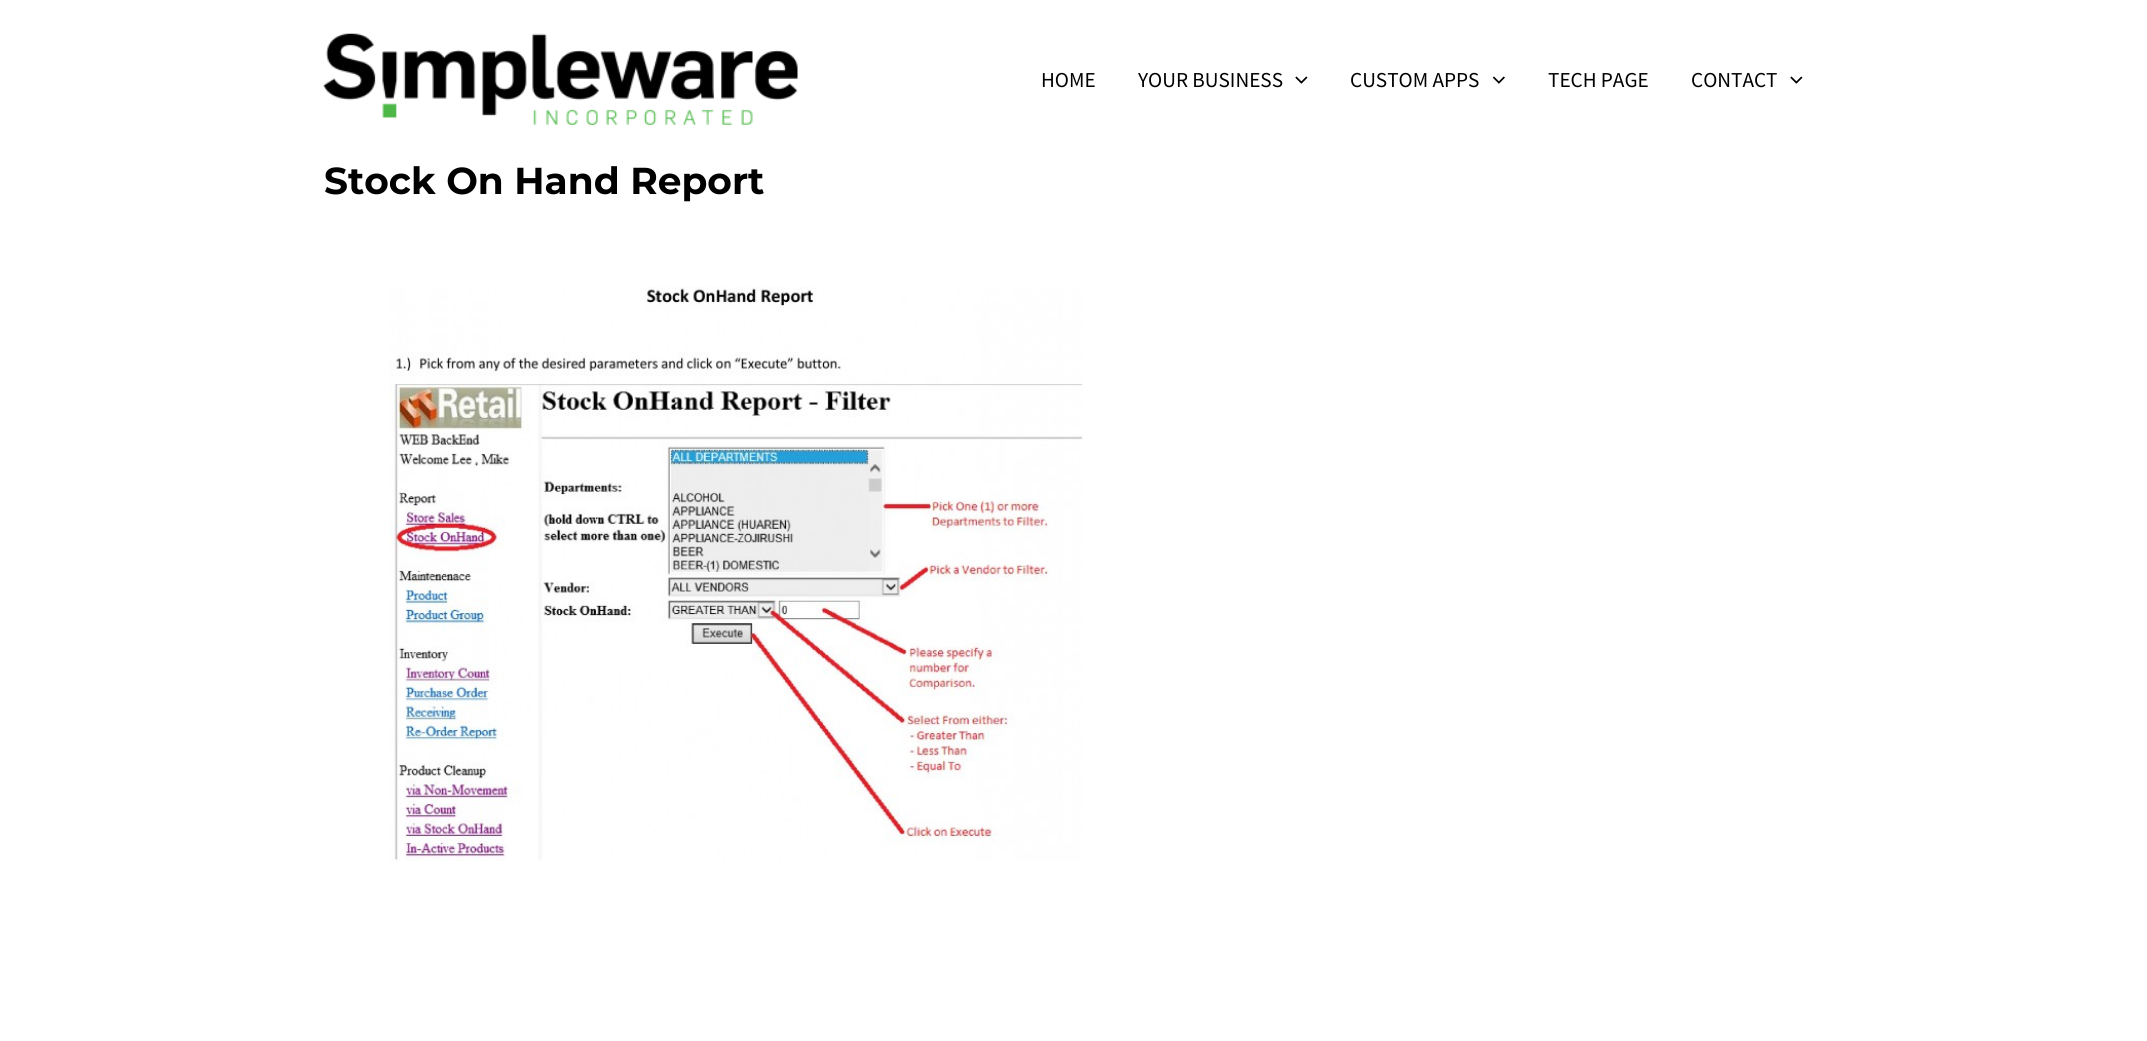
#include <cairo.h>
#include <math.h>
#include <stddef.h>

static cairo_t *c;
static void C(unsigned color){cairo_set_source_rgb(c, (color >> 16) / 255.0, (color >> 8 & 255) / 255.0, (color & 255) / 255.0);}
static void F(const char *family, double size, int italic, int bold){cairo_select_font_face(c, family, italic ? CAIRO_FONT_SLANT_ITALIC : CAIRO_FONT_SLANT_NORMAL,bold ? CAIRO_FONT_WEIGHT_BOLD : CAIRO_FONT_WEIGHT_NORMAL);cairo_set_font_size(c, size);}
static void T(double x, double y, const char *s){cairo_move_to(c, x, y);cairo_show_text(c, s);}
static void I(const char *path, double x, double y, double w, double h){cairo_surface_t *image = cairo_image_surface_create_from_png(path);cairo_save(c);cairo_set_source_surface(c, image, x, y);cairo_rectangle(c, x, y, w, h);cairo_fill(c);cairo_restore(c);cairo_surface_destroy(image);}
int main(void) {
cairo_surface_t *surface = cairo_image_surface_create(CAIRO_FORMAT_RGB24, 2147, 1041);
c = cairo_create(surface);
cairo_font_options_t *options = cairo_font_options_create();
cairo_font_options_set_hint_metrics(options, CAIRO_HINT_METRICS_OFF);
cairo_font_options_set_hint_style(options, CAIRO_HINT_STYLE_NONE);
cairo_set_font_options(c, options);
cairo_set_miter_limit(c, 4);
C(0xffffff);
cairo_paint(c);
I("1.png",323,33,475,92);
F("Source Sans Pro",21.25,0,0);
C(0x000000);
T(1041,87,"HOME");
T(1138,87,"YOUR BUSINESS");
I("2.png",1295,76,13,8);
T(1350,87,"CUSTOM APPS");
I("3.png",1493,76,12,8);
T(1548,87,"TECH PAGE");
T(1691,87,"CONTACT");
I("2.png",1790,76,13,8);
F("Montserrat Thin",37.5,0,0);
T(324,194,"Stock On Hand Report");
I("4.png",389,287,694,574);
cairo_surface_write_to_png(surface, "o.png");
cairo_font_options_destroy(options);
cairo_destroy(c);
cairo_surface_destroy(surface);
return 0;
}
